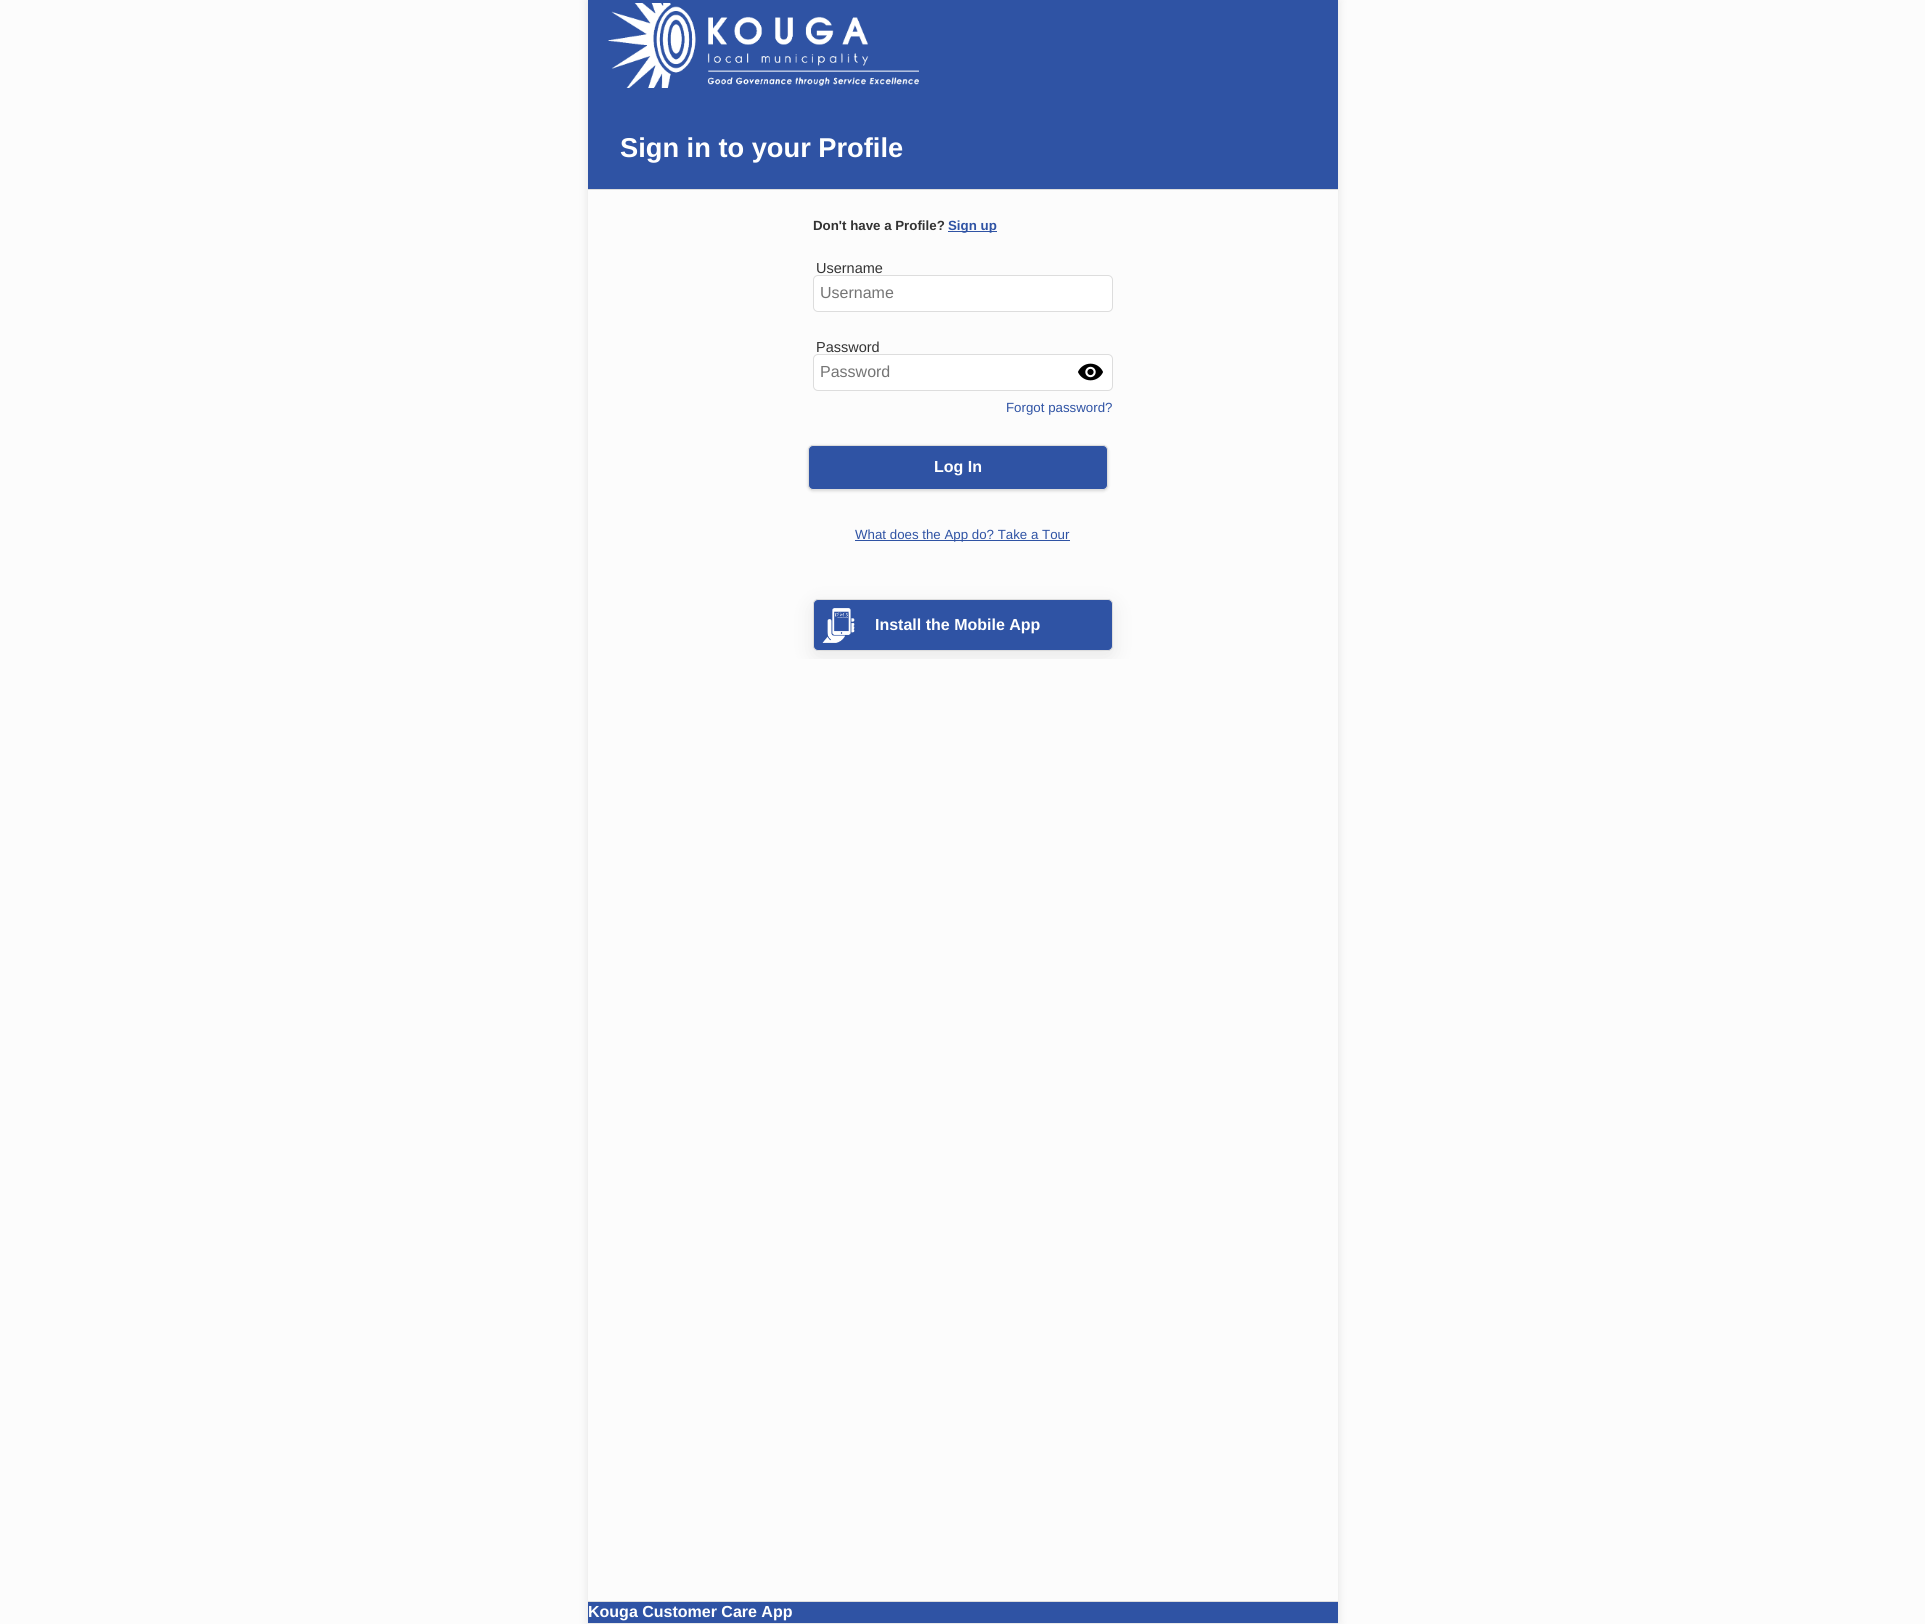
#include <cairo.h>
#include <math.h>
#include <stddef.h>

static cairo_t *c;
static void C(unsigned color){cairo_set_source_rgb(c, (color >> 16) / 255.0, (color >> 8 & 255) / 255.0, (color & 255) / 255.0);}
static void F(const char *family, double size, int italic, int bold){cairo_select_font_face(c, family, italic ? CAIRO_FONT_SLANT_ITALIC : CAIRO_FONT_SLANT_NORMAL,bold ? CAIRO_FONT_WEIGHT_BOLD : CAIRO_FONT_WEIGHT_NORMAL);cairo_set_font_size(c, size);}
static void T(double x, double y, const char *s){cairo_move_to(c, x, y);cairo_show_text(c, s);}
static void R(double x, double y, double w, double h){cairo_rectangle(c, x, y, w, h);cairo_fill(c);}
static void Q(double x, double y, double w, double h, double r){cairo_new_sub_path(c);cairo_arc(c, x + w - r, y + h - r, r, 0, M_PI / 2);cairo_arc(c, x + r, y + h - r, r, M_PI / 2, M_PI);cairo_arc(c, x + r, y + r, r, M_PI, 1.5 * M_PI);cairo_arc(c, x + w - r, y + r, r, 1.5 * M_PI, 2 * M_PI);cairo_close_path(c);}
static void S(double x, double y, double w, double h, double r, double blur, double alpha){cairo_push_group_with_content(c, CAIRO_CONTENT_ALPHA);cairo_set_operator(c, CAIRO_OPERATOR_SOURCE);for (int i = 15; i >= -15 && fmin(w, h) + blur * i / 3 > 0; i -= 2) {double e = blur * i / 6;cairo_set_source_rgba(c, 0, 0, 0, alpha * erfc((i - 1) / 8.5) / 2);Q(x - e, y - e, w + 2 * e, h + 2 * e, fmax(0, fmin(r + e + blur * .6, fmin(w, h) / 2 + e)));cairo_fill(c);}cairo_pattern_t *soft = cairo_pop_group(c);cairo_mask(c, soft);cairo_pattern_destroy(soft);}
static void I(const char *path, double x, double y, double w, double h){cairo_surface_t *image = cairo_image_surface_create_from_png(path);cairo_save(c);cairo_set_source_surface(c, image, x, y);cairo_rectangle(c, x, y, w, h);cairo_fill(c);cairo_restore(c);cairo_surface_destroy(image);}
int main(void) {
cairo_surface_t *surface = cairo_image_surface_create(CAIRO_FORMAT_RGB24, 1925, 1624);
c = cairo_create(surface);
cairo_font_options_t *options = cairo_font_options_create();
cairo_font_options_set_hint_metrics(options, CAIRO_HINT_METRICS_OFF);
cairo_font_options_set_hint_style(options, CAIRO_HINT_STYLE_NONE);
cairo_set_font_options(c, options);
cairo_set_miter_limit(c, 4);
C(0xfcfcfc);
cairo_paint(c);
cairo_save(c);
cairo_set_fill_rule(c,CAIRO_FILL_RULE_EVEN_ODD);
cairo_new_path(c);
cairo_move_to(c,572,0);
cairo_line_to(c,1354,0);
cairo_line_to(c,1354,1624);
cairo_line_to(c,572,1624);
cairo_close_path(c);
cairo_move_to(c,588,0);
cairo_line_to(c,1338,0);
cairo_line_to(c,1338,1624);
cairo_line_to(c,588,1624);
cairo_close_path(c);
cairo_clip(c);
C(0x000000);
S(588,0,750,1624,0,5,.1);
cairo_restore(c);
C(0xdddddd);
R(588,189,750,1);
C(0x2f53a4);
R(588,0,750,189);
I("1.png",608,3,311,85);
F("Liberation Sans",27.25,0,1);
C(0xffffff);
T(620,157,"Sign in to your Profile");
F("Liberation Sans",13.3,0,1);
C(0x333333);
T(813,230,"Don't have a Profile?");
C(0x2f53a4);
R(948,231,49,1);
T(948,230,"Sign up");
F("Liberation Sans",14.5,0,0);
C(0x333333);
T(816,273,"Username");
C(0xffffff);
Q(813.5,275.5,299,36,4.5);
cairo_fill_preserve(c);
C(0xdddddd);
cairo_set_line_width(c,1);
cairo_stroke(c);
F("Liberation Sans",16,0,0);
C(0x757575);
T(820,298,"Username");
F("Liberation Sans",14.5,0,0);
C(0x333333);
T(816,352,"Password");
C(0xffffff);
Q(813.5,354.5,299,36,4.5);
cairo_fill_preserve(c);
C(0xdddddd);
cairo_stroke(c);
F("Liberation Sans",16,0,0);
C(0x757575);
T(820,377,"Password");
I("2.png",1078,363,25,18);
F("Liberation Sans",13.3,0,0);
C(0x2f53a4);
T(1006,412,"Forgot password?");
C(0x000000);
S(808,446,300,45,5,1.5,.15);
C(0x2f53a4);
Q(808.5,445.5,299,44,4.5);
cairo_fill_preserve(c);
C(0xdddddd);
cairo_stroke(c);
F("Liberation Sans",16,0,1);
C(0xffffff);
T(934,472,"Log In");
C(0x2f53a4);
R(855,540,215,1);
F("Liberation Sans",13.3,0,0);
T(855,539,"What does the App do? Take a Tour");
cairo_save(c);
cairo_rectangle(c,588,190,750,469);
cairo_clip(c);
C(0x969696);
S(813,605,300,52,5,10,.19);
cairo_restore(c);
Q(813.5,599.5,299,51,4.5);
cairo_fill_preserve(c);
C(0xdddddd);
cairo_stroke(c);
I("3.png",822,608,33,35);
F("Liberation Sans",16,0,1);
C(0xffffff);
T(875,630,"Install the Mobile App");
C(0xe9e9e9);
R(588,1623,750,1);
C(0xdddddd);
R(588,1601,750,1);
C(0x2f53a4);
R(588,1602,750,21);
C(0xffffff);
T(588,1617,"Kouga Customer Care App");
cairo_surface_write_to_png(surface, "o.png");
cairo_font_options_destroy(options);
cairo_destroy(c);
cairo_surface_destroy(surface);
return 0;
}
